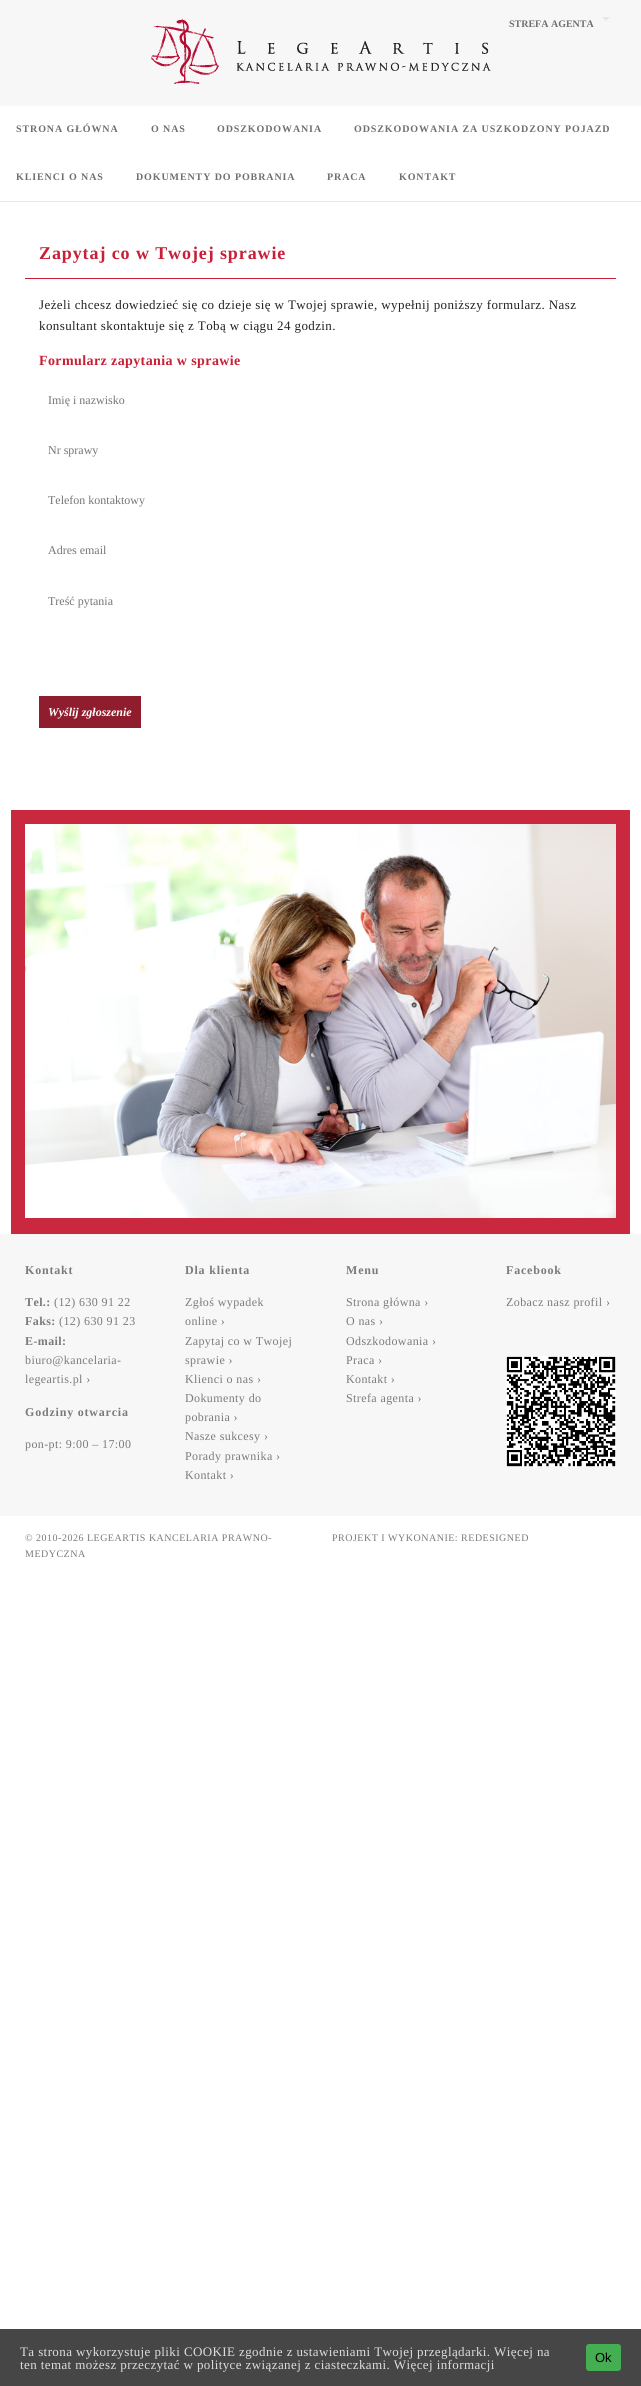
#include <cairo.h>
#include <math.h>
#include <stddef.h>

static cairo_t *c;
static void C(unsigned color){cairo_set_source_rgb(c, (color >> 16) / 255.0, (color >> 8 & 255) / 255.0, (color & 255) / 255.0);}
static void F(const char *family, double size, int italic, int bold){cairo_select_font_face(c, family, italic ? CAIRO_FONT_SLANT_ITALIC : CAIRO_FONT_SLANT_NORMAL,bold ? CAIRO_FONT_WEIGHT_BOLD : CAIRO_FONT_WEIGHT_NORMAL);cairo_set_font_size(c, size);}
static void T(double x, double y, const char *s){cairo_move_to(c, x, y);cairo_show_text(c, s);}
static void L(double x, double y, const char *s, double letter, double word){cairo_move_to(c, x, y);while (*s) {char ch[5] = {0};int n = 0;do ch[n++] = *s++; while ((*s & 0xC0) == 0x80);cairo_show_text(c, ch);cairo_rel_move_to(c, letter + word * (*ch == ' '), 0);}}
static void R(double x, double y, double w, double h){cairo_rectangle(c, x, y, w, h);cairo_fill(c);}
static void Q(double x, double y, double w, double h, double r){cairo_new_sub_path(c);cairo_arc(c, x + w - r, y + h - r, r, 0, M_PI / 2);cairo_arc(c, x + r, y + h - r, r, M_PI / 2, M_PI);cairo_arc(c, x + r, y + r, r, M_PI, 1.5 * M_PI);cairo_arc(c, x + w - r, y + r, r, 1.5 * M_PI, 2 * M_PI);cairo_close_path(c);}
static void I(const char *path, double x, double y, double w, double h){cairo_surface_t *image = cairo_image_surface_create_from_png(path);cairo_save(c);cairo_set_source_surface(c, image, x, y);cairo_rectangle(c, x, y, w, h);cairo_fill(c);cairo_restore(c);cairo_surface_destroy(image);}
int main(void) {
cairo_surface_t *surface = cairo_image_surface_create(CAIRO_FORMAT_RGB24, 641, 2386);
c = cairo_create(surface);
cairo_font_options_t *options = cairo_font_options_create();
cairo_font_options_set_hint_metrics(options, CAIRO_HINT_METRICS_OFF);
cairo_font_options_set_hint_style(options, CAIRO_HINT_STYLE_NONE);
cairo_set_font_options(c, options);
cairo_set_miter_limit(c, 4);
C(0xffffff);
cairo_paint(c);
C(0xf7f7f7);
R(0,0,641,105);
I("1.png",151,18,340,67);
C(0xe6e6e6);
cairo_new_path(c);
cairo_move_to(c,602,17);
cairo_line_to(c,610,17);
cairo_line_to(c,606,21);
cairo_close_path(c);
cairo_fill(c);
F("Liberation Serif",10,0,1);
C(0x6f6f6f);
T(509,27,"STREFA AGENTA");
C(0xe7e7e7);
R(0,201,641,1);
C(0xf8f8f8);
R(0,105,641,1);
C(0x6f6f6f);
L(16,132,"STRONA GŁÓWNA",.9,0);
L(151,132,"O NAS",.9,0);
L(217,132,"ODSZKODOWANIA",.9,0);
L(354,132,"ODSZKODOWANIA ZA USZKODZONY POJAZD",.9,0);
L(16,180,"KLIENCI O NAS",.9,0);
L(136,180,"DOKUMENTY DO POBRANIA",.9,0);
L(327,180,"PRACA",.9,0);
L(399,180,"KONTAKT",.9,0);
C(0xc81f37);
R(25,278,591,1);
F("Liberation Serif",18,0,1);
L(39,259,"Zapytaj co w Twojej sprawie",.9,0);
F("Liberation Serif",13,0,0);
C(0x222222);
L(39,309,"Jeżeli chcesz dowiedzieć się co dzieje się w Twojej sprawie, wypełnij poniższy formularz. Nasz",.4,0);
L(39,330,"konsultant skontaktuje się z Tobą w ciągu 24 godzin.",.4,0);
F("Liberation Serif",14,0,1);
C(0xc81f37);
L(39,365,"Formularz zapytania w sprawie",.4,0);
F("Liberation Serif",12,0,0);
C(0x757575);
T(48,404,"Imię i nazwisko");
T(48,454,"Nr sprawy");
T(48,504,"Telefon kontaktowy");
T(48,554,"Adres email");
T(48,605,"Treść pytania");
C(0x8f1d2d);
R(39,696,102,32);
F("Liberation Serif",12,1,1);
C(0xffffff);
T(48,716,"Wyślij zgłoszenie");
C(0xca283f);
R(11,810,619,424);
I("2.png",25,824,591,394);
C(0xf7f7f7);
R(0,1234,641,282);
F("Liberation Serif",12,0,1);
C(0x7b7b7b);
L(25,1274,"Kontakt",.8,0);
L(25,1306,"Tel.:",.4,0);
F("Liberation Serif",12,0,0);
L(54,1306,"(12) 630 91 22",.4,0);
F("Liberation Serif",12,0,1);
L(25,1325,"Faks:",.4,0);
F("Liberation Serif",12,0,0);
L(59,1325,"(12) 630 91 23",.4,0);
F("Liberation Serif",12,0,1);
L(25,1345,"E-mail:",.4,0);
F("Liberation Serif",12,0,0);
L(25,1364,"biuro@kancelaria-",.4,0);
L(25,1383,"legeartis.pl ›",.4,0);
F("Liberation Serif",12,0,1);
L(25,1416,"Godziny otwarcia",.8,0);
F("Liberation Serif",12,0,0);
L(25,1448,"pon-pt: 9:00 – 17:00",.4,0);
F("Liberation Serif",12,0,1);
L(185,1274,"Dla klienta",.8,0);
F("Liberation Serif",12,0,0);
L(185,1306,"Zgłoś wypadek",.4,0);
L(185,1325,"online ›",.4,0);
L(185,1345,"Zapytaj co w Twojej",.4,0);
L(185,1364,"sprawie ›",.4,0);
L(185,1383,"Klienci o nas ›",.4,0);
L(185,1402,"Dokumenty do",.4,0);
L(185,1421,"pobrania ›",.4,0);
L(185,1440,"Nasze sukcesy ›",.4,0);
L(185,1460,"Porady prawnika ›",.4,0);
L(185,1479,"Kontakt ›",.4,0);
F("Liberation Serif",12,0,1);
L(346,1274,"Menu",.8,0);
F("Liberation Serif",12,0,0);
L(346,1306,"Strona główna ›",.4,0);
L(346,1325,"O nas ›",.4,0);
L(346,1345,"Odszkodowania ›",.4,0);
L(346,1364,"Praca ›",.4,0);
L(346,1383,"Kontakt ›",.4,0);
L(346,1402,"Strefa agenta ›",.4,0);
F("Liberation Serif",12,0,1);
L(506,1274,"Facebook",.8,0);
F("Liberation Serif",12,0,0);
L(506,1306,"Zobacz nasz profil ›",.4,0);
I("3.png",506,1356,110,111);
F("Liberation Serif",10,0,0);
L(25,1541,"© 2010-2026 LEGEARTIS KANCELARIA PRAWNO-",.5,0);
L(25,1557,"MEDYCZNA",.5,0);
L(332,1541,"PROJEKT I WYKONANIE: REDESIGNED",.5,0);
C(0x464646);
R(0,2329,641,57);
F("Liberation Serif",13,0,0);
C(0xdddddd);
L(20,2356,"Ta strona wykorzystuje pliki COOKIE zgodnie z ustawieniami Twojej przeglądarki. Więcej na",.4,0);
L(20,2369,"ten temat możesz przeczytać w polityce związanej z ciasteczkami. Więcej informacji",.4,0);
C(0x45ae52);
Q(586,2344,35,27,3);
cairo_fill(c);
F("Liberation Sans",13,0,0);
C(0x000000);
T(595,2362,"Ok");
cairo_surface_write_to_png(surface, "o.png");
cairo_font_options_destroy(options);
cairo_destroy(c);
cairo_surface_destroy(surface);
return 0;
}
